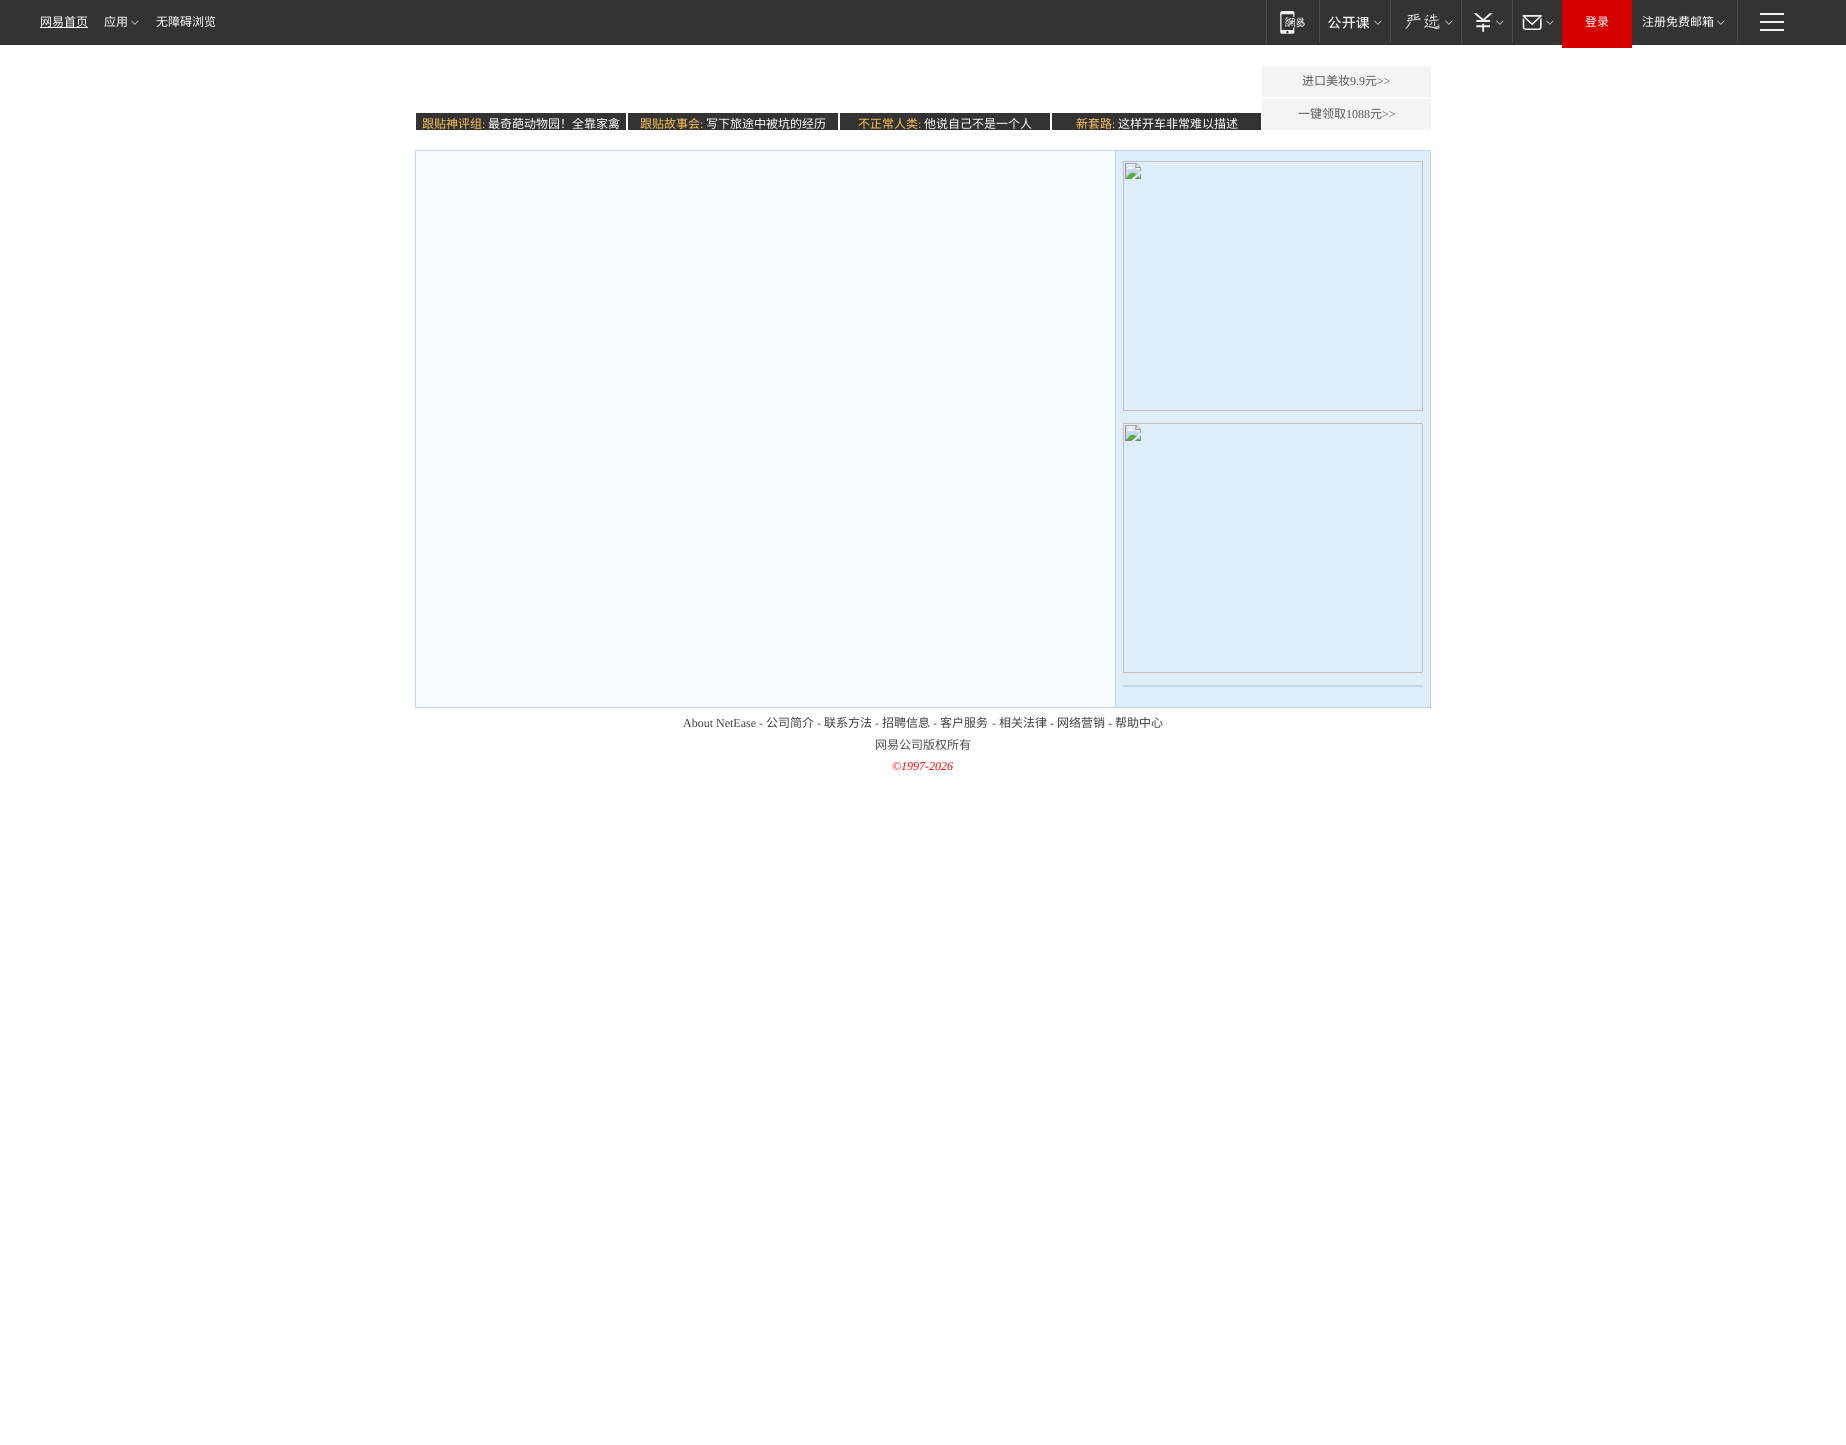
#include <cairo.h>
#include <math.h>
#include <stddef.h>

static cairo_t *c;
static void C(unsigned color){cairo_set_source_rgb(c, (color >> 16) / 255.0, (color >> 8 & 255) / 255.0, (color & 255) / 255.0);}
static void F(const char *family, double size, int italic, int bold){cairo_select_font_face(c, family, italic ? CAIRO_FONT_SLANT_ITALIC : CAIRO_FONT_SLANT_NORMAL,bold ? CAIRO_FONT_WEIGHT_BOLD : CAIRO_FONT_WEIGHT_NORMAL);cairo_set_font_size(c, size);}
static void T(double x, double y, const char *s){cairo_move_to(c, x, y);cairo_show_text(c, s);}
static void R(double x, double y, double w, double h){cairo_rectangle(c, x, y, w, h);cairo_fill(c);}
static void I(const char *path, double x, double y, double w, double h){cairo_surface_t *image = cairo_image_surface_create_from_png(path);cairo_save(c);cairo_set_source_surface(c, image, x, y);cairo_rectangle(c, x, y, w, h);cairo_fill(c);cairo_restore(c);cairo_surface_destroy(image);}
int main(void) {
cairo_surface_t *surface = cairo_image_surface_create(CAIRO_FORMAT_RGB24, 1846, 1445);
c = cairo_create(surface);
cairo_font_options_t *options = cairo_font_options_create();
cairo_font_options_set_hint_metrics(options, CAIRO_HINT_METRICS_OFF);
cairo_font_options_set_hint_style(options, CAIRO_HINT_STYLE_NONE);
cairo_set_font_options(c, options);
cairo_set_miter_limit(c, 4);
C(0xffffff);
cairo_paint(c);
C(0x333333);
R(0,0,1846,45);
F("Noto Sans CJK SC",12,0,0);
C(0xffffff);
T(40,26,"网易首页");
R(40,27,48,1);
T(104,26,"应用");
I("1.png",131,20,8,5);
T(156,26,"无障碍浏览");
C(0x4d4d4d);
R(1266,0,1,43);
I("2.png",1280,11,25,23);
R(1319,0,1,43);
I("3.png",1328,16,42,13);
I("1.png",1374,20,8,5);
R(1390,0,1,43);
I("4.png",1405,13,35,16);
I("1.png",1445,20,8,5);
R(1461,0,1,43);
I("5.png",1473,13,20,19);
I("1.png",1496,20,8,5);
R(1512,0,1,43);
I("6.png",1522,15,20,15);
I("1.png",1546,20,8,5);
C(0xd60000);
R(1562,0,70,48);
C(0xffffff);
T(1585,26,"登录");
T(1642,26,"注册免费邮箱");
I("1.png",1717,20,8,5);
C(0x444444);
R(1737,0,1,43);
C(0xefefef);
R(1760,13,24,2);
R(1760,21,24,2);
R(1760,29,24,2);
C(0xf4f4f4);
R(1262,66,169,31);
C(0x585858);
T(1302,85,"进口美妆");
F("Liberation Serif",12,0,0);
T(1350,85,"9.9");
F("Noto Sans CJK SC",12,0,0);
T(1365,85,"元");
F("Liberation Serif",12,0,0);
T(1377,85,">>");
C(0xf4f4f4);
R(1262,99,169,31);
F("Noto Sans CJK SC",12,0,0);
C(0x585858);
T(1298,118,"一键领取");
F("Liberation Serif",12,0,0);
T(1346,118,"1088");
F("Noto Sans CJK SC",12,0,0);
T(1370,118,"元");
F("Liberation Serif",12,0,0);
T(1382,118,">>");
C(0x333333);
R(416,113,210,17);
F("Noto Sans CJK SC",12,0,0);
C(0xfdc255);
T(422,128,"跟贴神评组");
F("Liberation Serif",12,0,0);
T(482,128,":");
F("Noto Sans CJK SC",12,0,0);
C(0xffffff);
T(488,128,"最奇葩动物园！全靠家禽");
C(0x333333);
R(628,113,210,17);
C(0xfdc255);
T(640,128,"跟贴故事会");
F("Liberation Serif",12,0,0);
T(700,128,":");
F("Noto Sans CJK SC",12,0,0);
C(0xffffff);
T(706,128,"写下旅途中被坑的经历");
C(0x333333);
R(840,113,210,17);
C(0xfdc255);
T(858,128,"不正常人类");
F("Liberation Serif",12,0,0);
T(918,128,":");
F("Noto Sans CJK SC",12,0,0);
C(0xffffff);
T(924,128,"他说自己不是一个人");
C(0x333333);
R(1052,113,209,17);
C(0xfdc255);
T(1076,128,"新套路");
F("Liberation Serif",12,0,0);
T(1112,128,":");
F("Noto Sans CJK SC",12,0,0);
C(0xffffff);
T(1118,128,"这样开车非常难以描述");
I("7.png",415,151,1016,556);
C(0xc4d6ec);
R(415,150,1016,1);
R(415,707,1016,1);
I("8.png",1123,161,300,250);
I("8.png",1123,423,300,250);
R(1123,685,300,2);
F("Liberation Serif",12,0,0);
C(0x404040);
T(683,727,"About NetEase");
C(0x4d4d4d);
T(759,727,"-");
F("Noto Sans CJK SC",12,0,0);
C(0x404040);
T(766,727,"公司简介");
F("Liberation Serif",12,0,0);
C(0x4d4d4d);
T(817,727,"-");
F("Noto Sans CJK SC",12,0,0);
C(0x404040);
T(824,727,"联系方法");
F("Liberation Serif",12,0,0);
C(0x4d4d4d);
T(875,727,"-");
F("Noto Sans CJK SC",12,0,0);
C(0x404040);
T(882,727,"招聘信息");
F("Liberation Serif",12,0,0);
C(0x4d4d4d);
T(933,727,"-");
F("Noto Sans CJK SC",12,0,0);
C(0x404040);
T(940,727,"客户服务");
F("Liberation Serif",12,0,0);
C(0x4d4d4d);
T(992,727,"-");
F("Noto Sans CJK SC",12,0,0);
C(0x404040);
T(999,727,"相关法律");
F("Liberation Serif",12,0,0);
C(0x4d4d4d);
T(1050,727,"-");
F("Noto Sans CJK SC",12,0,0);
C(0x404040);
T(1057,727,"网络营销");
F("Liberation Serif",12,0,0);
C(0x4d4d4d);
T(1108,727,"-");
F("Noto Sans CJK SC",12,0,0);
C(0x404040);
T(1115,727,"帮助中心");
C(0x4d4d4d);
T(875,749,"网易公司版权所有");
F("Liberation Serif",12,1,0);
C(0xff0000);
T(892,770,"©1997-2026");
cairo_surface_write_to_png(surface, "o.png");
cairo_font_options_destroy(options);
cairo_destroy(c);
cairo_surface_destroy(surface);
return 0;
}
